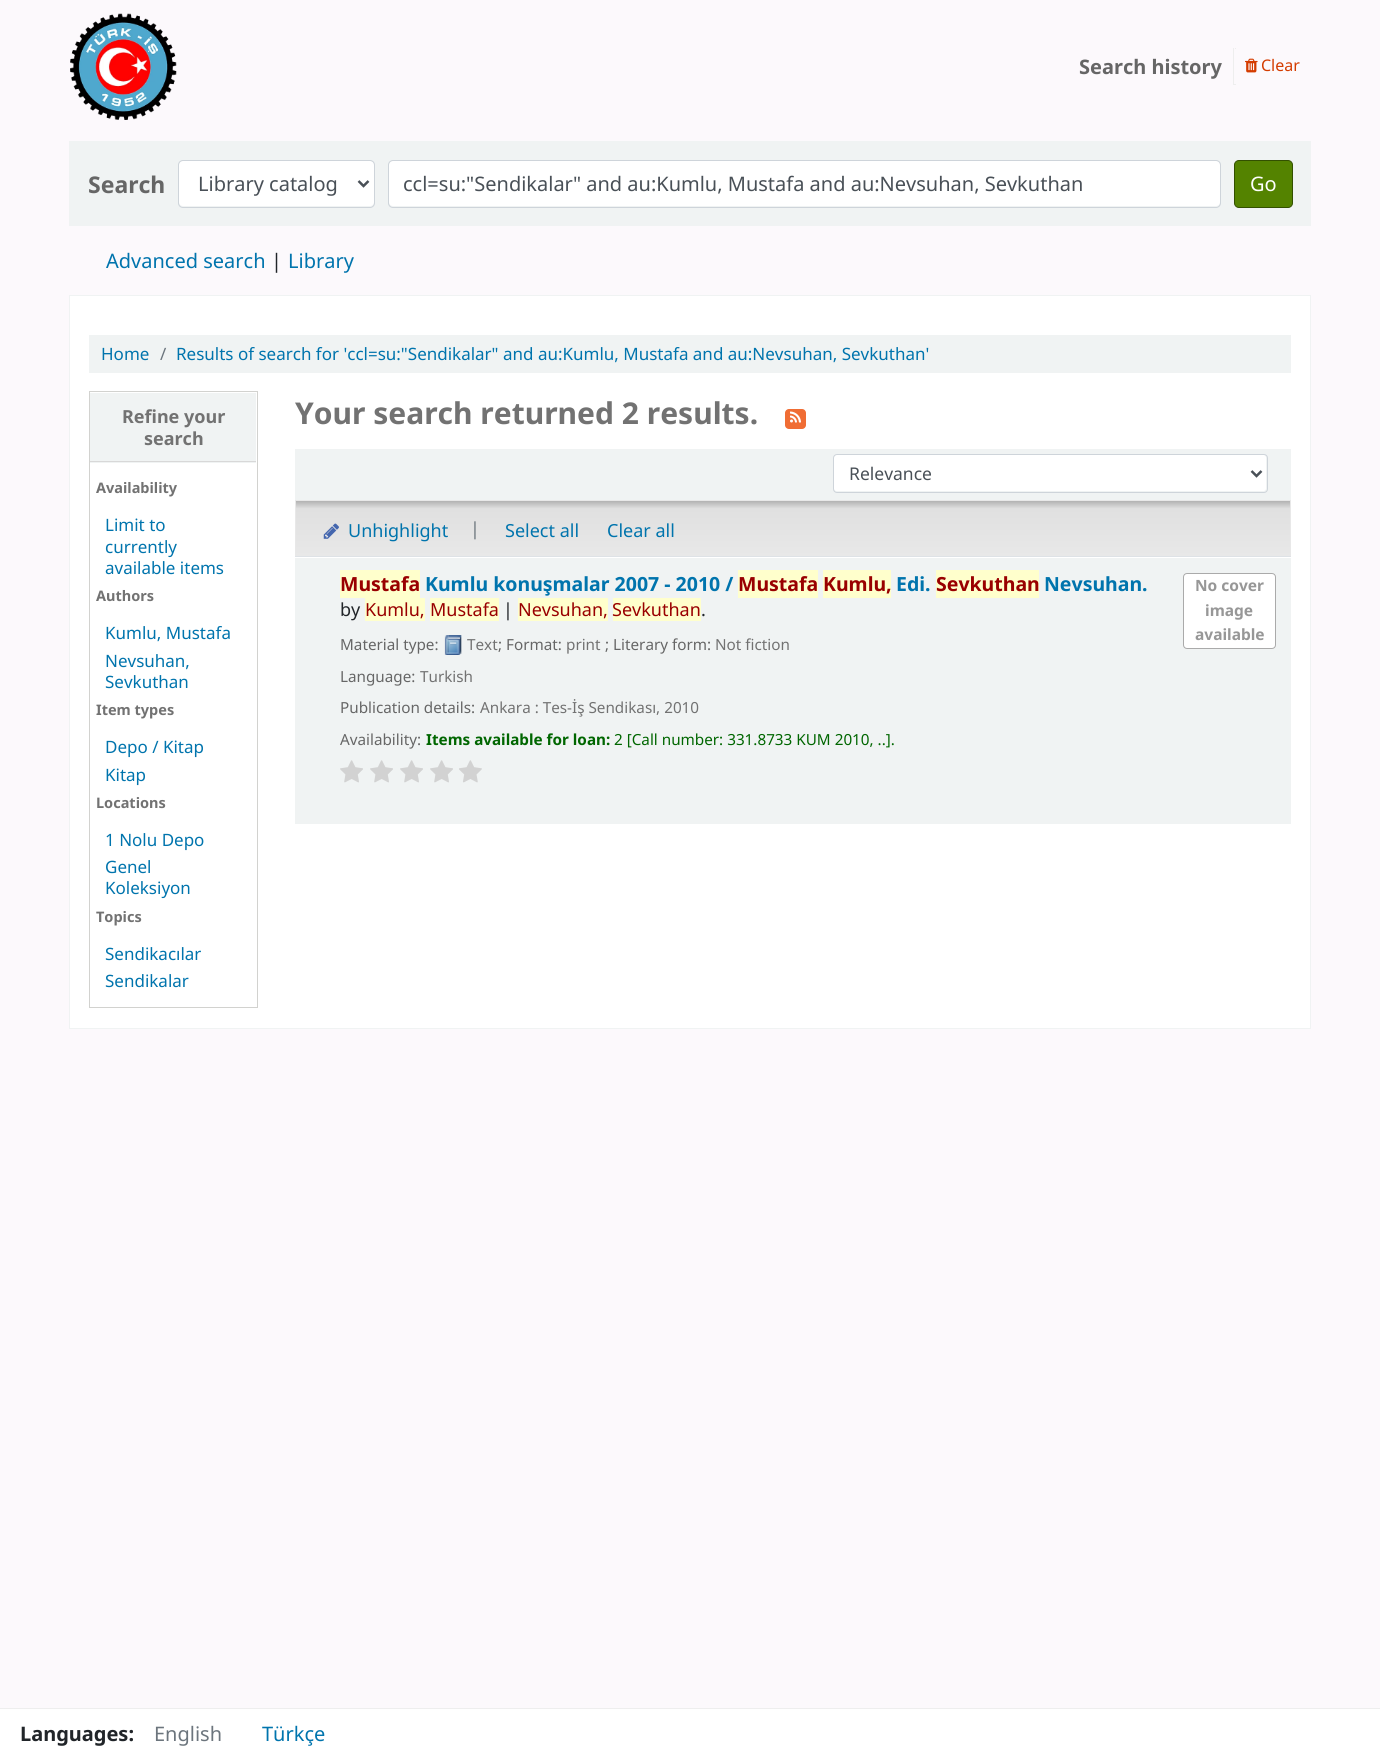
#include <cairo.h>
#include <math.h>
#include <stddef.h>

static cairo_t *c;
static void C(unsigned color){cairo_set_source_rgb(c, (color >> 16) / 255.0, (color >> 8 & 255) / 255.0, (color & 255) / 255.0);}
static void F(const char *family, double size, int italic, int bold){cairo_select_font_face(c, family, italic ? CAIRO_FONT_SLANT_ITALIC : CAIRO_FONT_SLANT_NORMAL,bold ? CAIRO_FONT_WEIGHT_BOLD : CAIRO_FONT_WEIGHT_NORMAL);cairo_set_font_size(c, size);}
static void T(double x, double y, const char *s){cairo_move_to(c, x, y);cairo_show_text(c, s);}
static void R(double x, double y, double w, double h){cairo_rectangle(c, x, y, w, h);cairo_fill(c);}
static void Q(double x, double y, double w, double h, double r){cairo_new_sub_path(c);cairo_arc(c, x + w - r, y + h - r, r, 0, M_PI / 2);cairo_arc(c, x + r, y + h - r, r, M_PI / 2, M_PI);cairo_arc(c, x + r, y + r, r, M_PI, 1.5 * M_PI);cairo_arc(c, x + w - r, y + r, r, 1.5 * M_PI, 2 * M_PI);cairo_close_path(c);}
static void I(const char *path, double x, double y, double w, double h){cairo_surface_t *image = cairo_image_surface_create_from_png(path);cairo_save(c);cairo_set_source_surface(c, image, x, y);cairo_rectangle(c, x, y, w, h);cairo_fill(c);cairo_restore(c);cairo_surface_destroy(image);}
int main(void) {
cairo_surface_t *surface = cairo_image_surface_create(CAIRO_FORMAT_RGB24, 1380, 1763);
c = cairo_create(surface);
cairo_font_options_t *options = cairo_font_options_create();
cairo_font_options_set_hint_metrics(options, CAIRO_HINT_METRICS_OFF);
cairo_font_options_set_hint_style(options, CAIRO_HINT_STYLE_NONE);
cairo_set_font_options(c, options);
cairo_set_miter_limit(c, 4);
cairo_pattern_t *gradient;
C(0xfcf9fc);
cairo_paint(c);
I("1.png",70,13,107,107);
F("Noto Sans",20,0,1);
C(0x666666);
T(1079,74,"Search history");
C(0xeeeeee);
R(1233,48,3,1);
C(0xfcf9fc);
R(1234,48,1,1);
C(0xeeeeee);
R(1233,84,3,1);
R(1233,48,1,37);
I("2.png",1245,58,13,15);
F("Noto Sans",16,0,0);
C(0xd43c00);
T(1261,71,"Clear");
C(0xf0f3f3);
R(69,141,1242,85);
F("Noto Sans",23,0,1);
C(0x666666);
T(88,193,"Search");
C(0xffffff);
Q(179,161,195,45,4);
cairo_fill(c);
Q(178.5,160.5,196,47,4.5);
C(0xced4da);
cairo_set_line_width(c,1);
cairo_stroke(c);
cairo_new_path(c);
cairo_move_to(c,358.5,181);
cairo_line_to(c,363.5,186);
cairo_line_to(c,368.5,181);
C(0x495057);
cairo_set_line_width(c,2.5);
cairo_stroke(c);
F("Noto Sans",20,0,0);
T(198,191,"Library catalog");
C(0xffffff);
Q(389,161,831,45,4);
cairo_fill(c);
Q(388.5,160.5,832,47,4.5);
C(0xced4da);
cairo_set_line_width(c,1);
cairo_stroke(c);
C(0x495057);
T(403,191,"ccl=su:\"Sendikalar\" and au:Kumlu, Mustafa and au:Nevsuhan, Sevkuthan");
C(0x548300);
Q(1234.5,160.5,58,47,4.5);
cairo_fill_preserve(c);
C(0x335000);
cairo_stroke(c);
C(0xffffff);
T(1250,191,"Go");
C(0x0074ad);
T(106,268,"Advanced search");
C(0x212529);
T(271,268,"|");
C(0x0074ad);
T(288,268,"Library");
C(0xffffff);
cairo_rectangle(c,69.5,295.5,1241,733);
cairo_fill_preserve(c);
C(0xf0f3f3);
cairo_stroke(c);
R(89,335,1202,38);
F("Noto Sans",17,0,0);
C(0x0074ad);
T(101,360,"Home");
C(0x6c757d);
T(160,360,"/");
C(0x0074ad);
T(176,360,"Results of search for 'ccl=su:\"Sendikalar\" and au:Kumlu, Mustafa and au:Nevsuhan, Sevkuthan'");
cairo_rectangle(c,89.5,391.5,168,616);
C(0xd2d2cf);
cairo_stroke(c);
C(0xf0f3f3);
R(90,393,166,70);
C(0xd8d8d8);
R(90,461,166,1);
F("Noto Sans",18,0,1);
C(0x727272);
T(122,423,"Refine your");
T(144,445,"search");
F("Noto Sans",14.5,0,1);
T(96,493,"Availability");
F("Noto Sans",17,0,0);
C(0x0074ad);
T(105,531,"Limit to");
T(105,553,"currently");
T(105,574,"available items");
F("Noto Sans",14.5,0,1);
C(0x727272);
T(96,601,"Authors");
F("Noto Sans",17,0,0);
C(0x0074ad);
T(105,639,"Kumlu, Mustafa");
T(105,667,"Nevsuhan,");
T(105,688,"Sevkuthan");
F("Noto Sans",14.5,0,1);
C(0x727272);
T(96,715,"Item types");
F("Noto Sans",17,0,0);
C(0x0074ad);
T(105,753,"Depo / Kitap");
T(105,781,"Kitap");
F("Noto Sans",14.5,0,1);
C(0x727272);
T(96,808,"Locations");
F("Noto Sans",17,0,0);
C(0x0074ad);
T(105,846,"1 Nolu Depo");
T(105,873,"Genel");
T(105,894,"Koleksiyon");
F("Noto Sans",14.5,0,1);
C(0x727272);
T(96,922,"Topics");
F("Noto Sans",17,0,0);
C(0x0074ad);
T(105,960,"Sendikacılar");
T(105,987,"Sendikalar");
F("Noto Sans",30,0,1);
C(0x727272);
T(295,424,"Your search returned 2 results.");
C(0xf06d34);
Q(785,409,21,20,4);
cairo_fill(c);
I("3.png",790,411,11,12);
C(0xf0f3f3);
R(295,449,996,51);
C(0xffffff);
Q(834,455,432,36,2.5);
cairo_fill(c);
Q(833.5,454.5,434,38,3.5);
C(0xced4da);
cairo_stroke(c);
cairo_new_path(c);
cairo_move_to(c,1251.5,471);
cairo_line_to(c,1256.5,476);
cairo_line_to(c,1261.5,471);
C(0x495057);
cairo_set_line_width(c,2.5);
cairo_stroke(c);
F("Noto Sans",17.5,0,0);
T(849,480,"Relevance");
gradient = cairo_pattern_create_linear(793,446,793,501);
cairo_pattern_add_color_stop_rgba(gradient,0,0.698,0.698,0.698,1);
cairo_pattern_add_color_stop_rgba(gradient,.14,0.878,0.878,0.878,1);
cairo_pattern_add_color_stop_rgba(gradient,1,0.91,0.91,0.91,1);
cairo_set_source(c,gradient);
cairo_pattern_destroy(gradient);
R(295,500,996,1);
gradient = cairo_pattern_create_linear(793,501,793,556);
cairo_pattern_add_color_stop_rgba(gradient,0,0.698,0.698,0.698,1);
cairo_pattern_add_color_stop_rgba(gradient,.14,0.878,0.878,0.878,1);
cairo_pattern_add_color_stop_rgba(gradient,1,0.91,0.91,0.91,1);
cairo_set_source(c,gradient);
cairo_pattern_destroy(gradient);
R(296,501,994,55);
C(0xe8e8e8);
R(1290,500,1,56);
R(295,500,1,56);
I("4.png",323,523,16,16);
F("Noto Sans",18,0,0);
C(0x0074ad);
T(348,537,"Unhighlight");
C(0x6c757d);
T(470,535,"|");
C(0x0074ad);
T(505,537,"Select all");
T(607,537,"Clear all");
C(0xf0f3f3);
R(295,558,996,266);
C(0xdee2e6);
R(295,556,996,1);
C(0xffffcc);
R(340,570,80,28);
F("Noto Sans",19.5,0,1);
C(0x990000);
T(340,591,"Mustafa");
C(0x0074ad);
T(425,591,"Kumlu konuşmalar 2007 - 2010 /");
C(0xffffcc);
R(738,570,80,28);
C(0x990000);
T(738,591,"Mustafa");
C(0xffffcc);
R(823,570,68,28);
C(0x990000);
T(823,591,"Kumlu,");
C(0x0074ad);
T(896,591,"Edi.");
C(0xffffcc);
R(936,570,103,28);
C(0x990000);
T(936,591,"Sevkuthan");
C(0x0074ad);
T(1044,591,"Nevsuhan.");
F("Noto Sans",18,0,0);
C(0x212529);
T(340,616,"by");
C(0xffffcc);
R(365,598,60,23);
C(0x990000);
T(365,616,"Kumlu,");
C(0xffffcc);
R(430,598,69,23);
C(0x990000);
T(430,616,"Mustafa");
C(0x212529);
T(503,616,"|");
C(0xffffcc);
R(518,598,90,23);
C(0x990000);
T(518,616,"Nevsuhan,");
C(0xffffcc);
R(613,598,88,23);
C(0x990000);
T(612,616,"Sevkuthan");
C(0x212529);
T(701,616,".");
F("Noto Sans",15.25,0,0);
C(0x666666);
T(340,650,"Material type:");
I("5.png",444,635,18,20);
C(0x727272);
T(467,650,"Text");
C(0x666666);
T(498,650,"; Format:");
C(0x727272);
T(566,650,"print");
C(0x666666);
T(605,650,"; Literary form:");
C(0x727272);
T(715,650,"Not fiction");
C(0x666666);
T(340,682,"Language:");
C(0x727272);
T(420,682,"Turkish");
C(0x666666);
T(340,713,"Publication details:");
C(0x727272);
T(480,713,"Ankara : Tes-İş Sendikası, 2010");
C(0x666666);
T(340,745,"Availability:");
F("Noto Sans",15.25,0,1);
C(0x006600);
T(426,745,"Items available for loan:");
F("Noto Sans",15.25,0,0);
T(614,745,"2 [Call number: 331.8733 KUM 2010, ..].");
I("6.png",340,760,23,23);
I("6.png",370,760,23,23);
I("6.png",400,760,23,23);
I("6.png",430,760,23,23);
I("7.png",459,760,23,23);
C(0xffffff);
Q(1183.5,573.5,92,75,3.5);
cairo_fill_preserve(c);
C(0xaaaaaa);
cairo_set_line_width(c,1);
cairo_stroke(c);
F("Noto Sans",15.5,0,1);
C(0x979797);
T(1195,591,"No cover");
T(1205,616,"image");
T(1195,640,"available");
C(0xffffff);
R(0,1709,1380,54);
C(0xeeeeee);
R(0,1708,1380,1);
F("Noto Sans",20,0,1);
C(0x212529);
T(20,1741,"Languages:");
F("Noto Sans",20,0,0);
C(0x6c757d);
T(154,1741,"English");
C(0x0074ad);
T(262,1741,"Türkçe");
cairo_surface_write_to_png(surface, "o.png");
cairo_font_options_destroy(options);
cairo_destroy(c);
cairo_surface_destroy(surface);
return 0;
}
